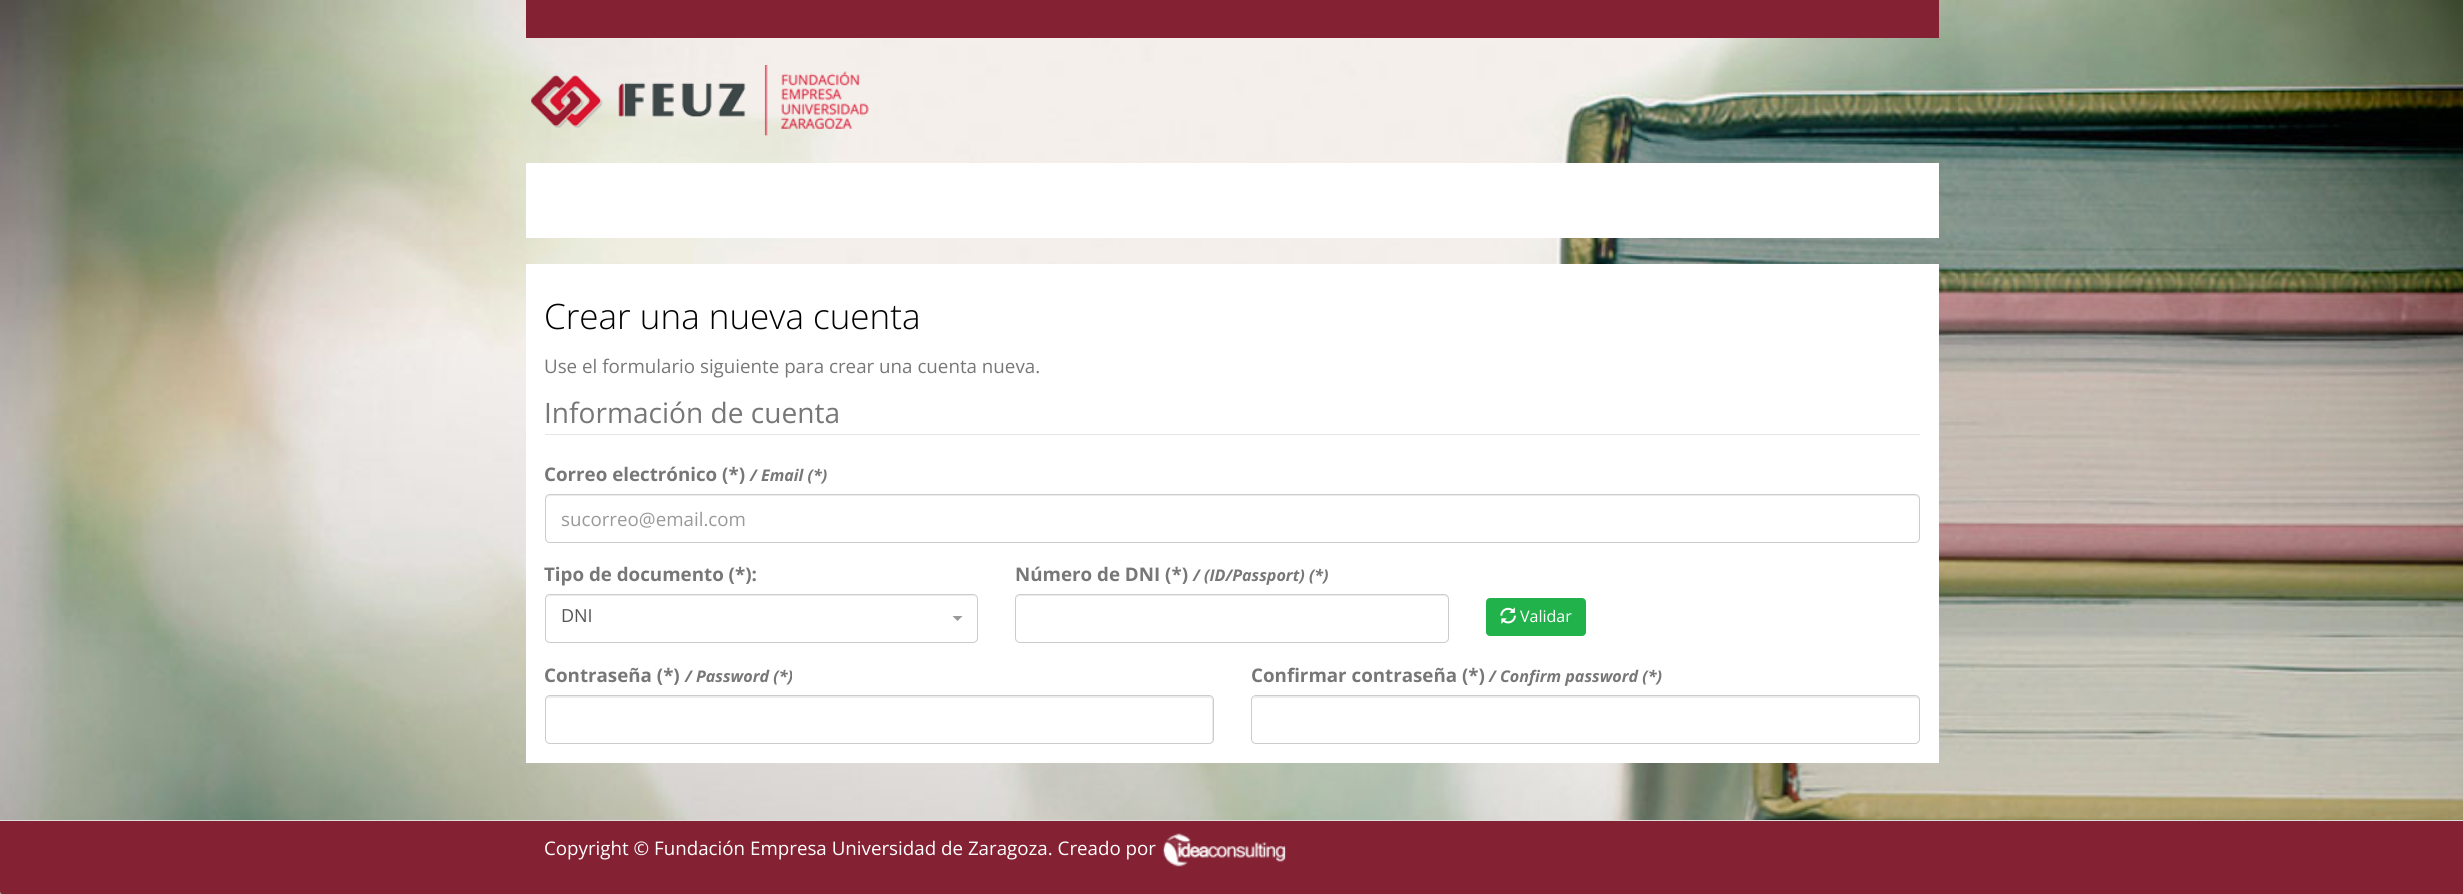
#include <cairo.h>
#include <math.h>
#include <stddef.h>

static cairo_t *c;
static void C(unsigned color){cairo_set_source_rgb(c, (color >> 16) / 255.0, (color >> 8 & 255) / 255.0, (color & 255) / 255.0);}
static void F(const char *family, double size, int italic, int bold){cairo_select_font_face(c, family, italic ? CAIRO_FONT_SLANT_ITALIC : CAIRO_FONT_SLANT_NORMAL,bold ? CAIRO_FONT_WEIGHT_BOLD : CAIRO_FONT_WEIGHT_NORMAL);cairo_set_font_size(c, size);}
static void T(double x, double y, const char *s){cairo_move_to(c, x, y);cairo_show_text(c, s);}
static void R(double x, double y, double w, double h){cairo_rectangle(c, x, y, w, h);cairo_fill(c);}
static void Q(double x, double y, double w, double h, double r){cairo_new_sub_path(c);cairo_arc(c, x + w - r, y + h - r, r, 0, M_PI / 2);cairo_arc(c, x + r, y + h - r, r, M_PI / 2, M_PI);cairo_arc(c, x + r, y + r, r, M_PI, 1.5 * M_PI);cairo_arc(c, x + w - r, y + r, r, 1.5 * M_PI, 2 * M_PI);cairo_close_path(c);}
static void I(const char *path, double x, double y, double w, double h){cairo_surface_t *image = cairo_image_surface_create_from_png(path);cairo_save(c);cairo_set_source_surface(c, image, x, y);cairo_rectangle(c, x, y, w, h);cairo_fill(c);cairo_restore(c);cairo_surface_destroy(image);}
int main(void) {
cairo_surface_t *surface = cairo_image_surface_create(CAIRO_FORMAT_RGB24, 2463, 894);
c = cairo_create(surface);
cairo_font_options_t *options = cairo_font_options_create();
cairo_font_options_set_hint_metrics(options, CAIRO_HINT_METRICS_OFF);
cairo_font_options_set_hint_style(options, CAIRO_HINT_STYLE_NONE);
cairo_set_font_options(c, options);
cairo_set_miter_limit(c, 4);
C(0xffffff);
cairo_paint(c);
I("1.png",0,0,2463,894);
C(0x842133);
R(526,0,1413,38);
I("2.png",530,65,339,72);
C(0xffffff);
R(526,163,1413,75);
R(526,264,1413,499);
F("Open Sans Light",35,0,0);
C(0x000000);
T(544,329,"Crear una nueva cuenta");
F("Open Sans",18.75,0,0);
C(0x777777);
T(544,373,"Use el formulario siguiente para crear una cuenta nueva.");
C(0xe5e5e5);
R(545,434,1375,1);
F("Open Sans",28.1,0,0);
C(0x777777);
T(544,423,"Información de cuenta");
F("Open Sans",18.75,0,1);
T(544,481,"Correo electrónico (*)");
F("Open Sans",16.1,1,1);
T(750,481,"/ Email (*)");
C(0xececec);
cairo_new_path(c);
cairo_move_to(c,550,496);
cairo_line_to(c,1915,496);
cairo_curve_to(c,1917,496,1919,498,1919,500);
cairo_line_to(c,1919,499);
cairo_curve_to(c,1919,497,1917,495,1915,495);
cairo_line_to(c,550,495);
cairo_curve_to(c,548,495,546,497,546,499);
cairo_line_to(c,546,500);
cairo_curve_to(c,546,498,548,496,550,496);
cairo_close_path(c);
cairo_fill(c);
Q(545.5,494.5,1374,48,4.5);
C(0xcccccc);
cairo_set_line_width(c,1);
cairo_stroke(c);
F("Open Sans",18.75,0,0);
C(0x999999);
T(561,526,"sucorreo@email.com");
F("Open Sans",18.75,0,1);
C(0x777777);
T(544,581,"Tipo de documento (*):");
C(0xececec);
cairo_new_path(c);
cairo_move_to(c,550,596);
cairo_line_to(c,972,596);
cairo_curve_to(c,975,596,976,598,976,600);
cairo_curve_to(c,976,597,975,595,972,595);
cairo_line_to(c,550,595);
cairo_curve_to(c,549,595,547,596,547,597);
cairo_line_to(c,546,600);
cairo_curve_to(c,546,598,548,596,550,596);
cairo_close_path(c);
cairo_fill(c);
Q(545.5,594.5,432,48,4.5);
C(0xcccccc);
cairo_stroke(c);
F("Open Sans",18,0,0);
C(0x555555);
T(561,622,"DNI");
C(0x999999);
cairo_new_path(c);
cairo_move_to(c,952.5,616);
cairo_line_to(c,962.5,616);
cairo_line_to(c,957.5,621);
cairo_close_path(c);
cairo_fill(c);
F("Open Sans",18.75,0,1);
C(0x777777);
T(1015,581,"Número de DNI (*)");
F("Open Sans",16.1,1,1);
T(1193,581,"/ (ID/Passport) (*)");
C(0xececec);
cairo_new_path(c);
cairo_move_to(c,1020,596);
cairo_line_to(c,1444,596);
cairo_curve_to(c,1446,596,1448,598,1448,600);
cairo_curve_to(c,1448,597,1447,595,1444,595);
cairo_line_to(c,1020,595);
cairo_curve_to(c,1019,595,1017,596,1017,597);
cairo_line_to(c,1016,600);
cairo_curve_to(c,1016,598,1018,596,1020,596);
cairo_close_path(c);
cairo_fill(c);
Q(1015.5,594.5,433,48,4.5);
C(0xcccccc);
cairo_stroke(c);
C(0x22b24c);
Q(1486.5,598.5,99,37,3.5);
cairo_fill_preserve(c);
cairo_stroke(c);
I("3.png",1500,607,16,17);
F("Open Sans",16,0,0);
C(0xffffff);
T(1520,622,"Validar");
F("Open Sans",18.75,0,1);
C(0x777777);
T(544,682,"Contraseña (*)");
F("Open Sans",16.1,1,1);
T(685,682,"/ Password (*)");
C(0xececec);
cairo_new_path(c);
cairo_move_to(c,550,698);
cairo_line_to(c,1209,698);
cairo_curve_to(c,1211,698,1212,699,1212,701);
cairo_line_to(c,1212,742);
cairo_curve_to(c,1212,741,1213,740,1213,739);
cairo_line_to(c,1213,700);
cairo_curve_to(c,1213,698,1211,696,1209,696);
cairo_line_to(c,550,696);
cairo_curve_to(c,548,696,546,698,546,700);
cairo_line_to(c,546,701);
cairo_curve_to(c,546,699,548,698,550,698);
cairo_close_path(c);
cairo_fill(c);
Q(545.5,695.5,668,48,4.5);
C(0xcccccc);
cairo_stroke(c);
F("Open Sans",18.75,0,1);
C(0x777777);
T(1251,682,"Confirmar contraseña (*)");
F("Open Sans",16.1,1,1);
T(1489,682,"/ Confirm password (*)");
C(0xececec);
cairo_new_path(c);
cairo_move_to(c,1256,698);
cairo_line_to(c,1915,698);
cairo_curve_to(c,1917,698,1919,699,1919,701);
cairo_line_to(c,1919,700);
cairo_curve_to(c,1919,698,1917,696,1915,696);
cairo_line_to(c,1257,696);
cairo_curve_to(c,1255,696,1254,697,1253,699);
cairo_close_path(c);
cairo_fill(c);
Q(1251.5,695.5,668,48,4.5);
C(0xcccccc);
cairo_stroke(c);
C(0x842133);
cairo_new_path(c);
cairo_move_to(c,0,820);
cairo_line_to(c,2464,820);
cairo_line_to(c,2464,891);
cairo_curve_to(c,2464,893,2462,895,2460,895);
cairo_line_to(c,4,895);
cairo_curve_to(c,2,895,0,893,0,891);
cairo_close_path(c);
cairo_fill(c);
C(0xdddddd);
R(0,820,2463,1);
F("Open Sans",18.75,0,0);
C(0xffffff);
T(544,855,"Copyright © Fundación Empresa Universidad de Zaragoza. Creado por");
I("4.png",1163,833,123,34);
cairo_surface_write_to_png(surface, "o.png");
cairo_font_options_destroy(options);
cairo_destroy(c);
cairo_surface_destroy(surface);
return 0;
}
